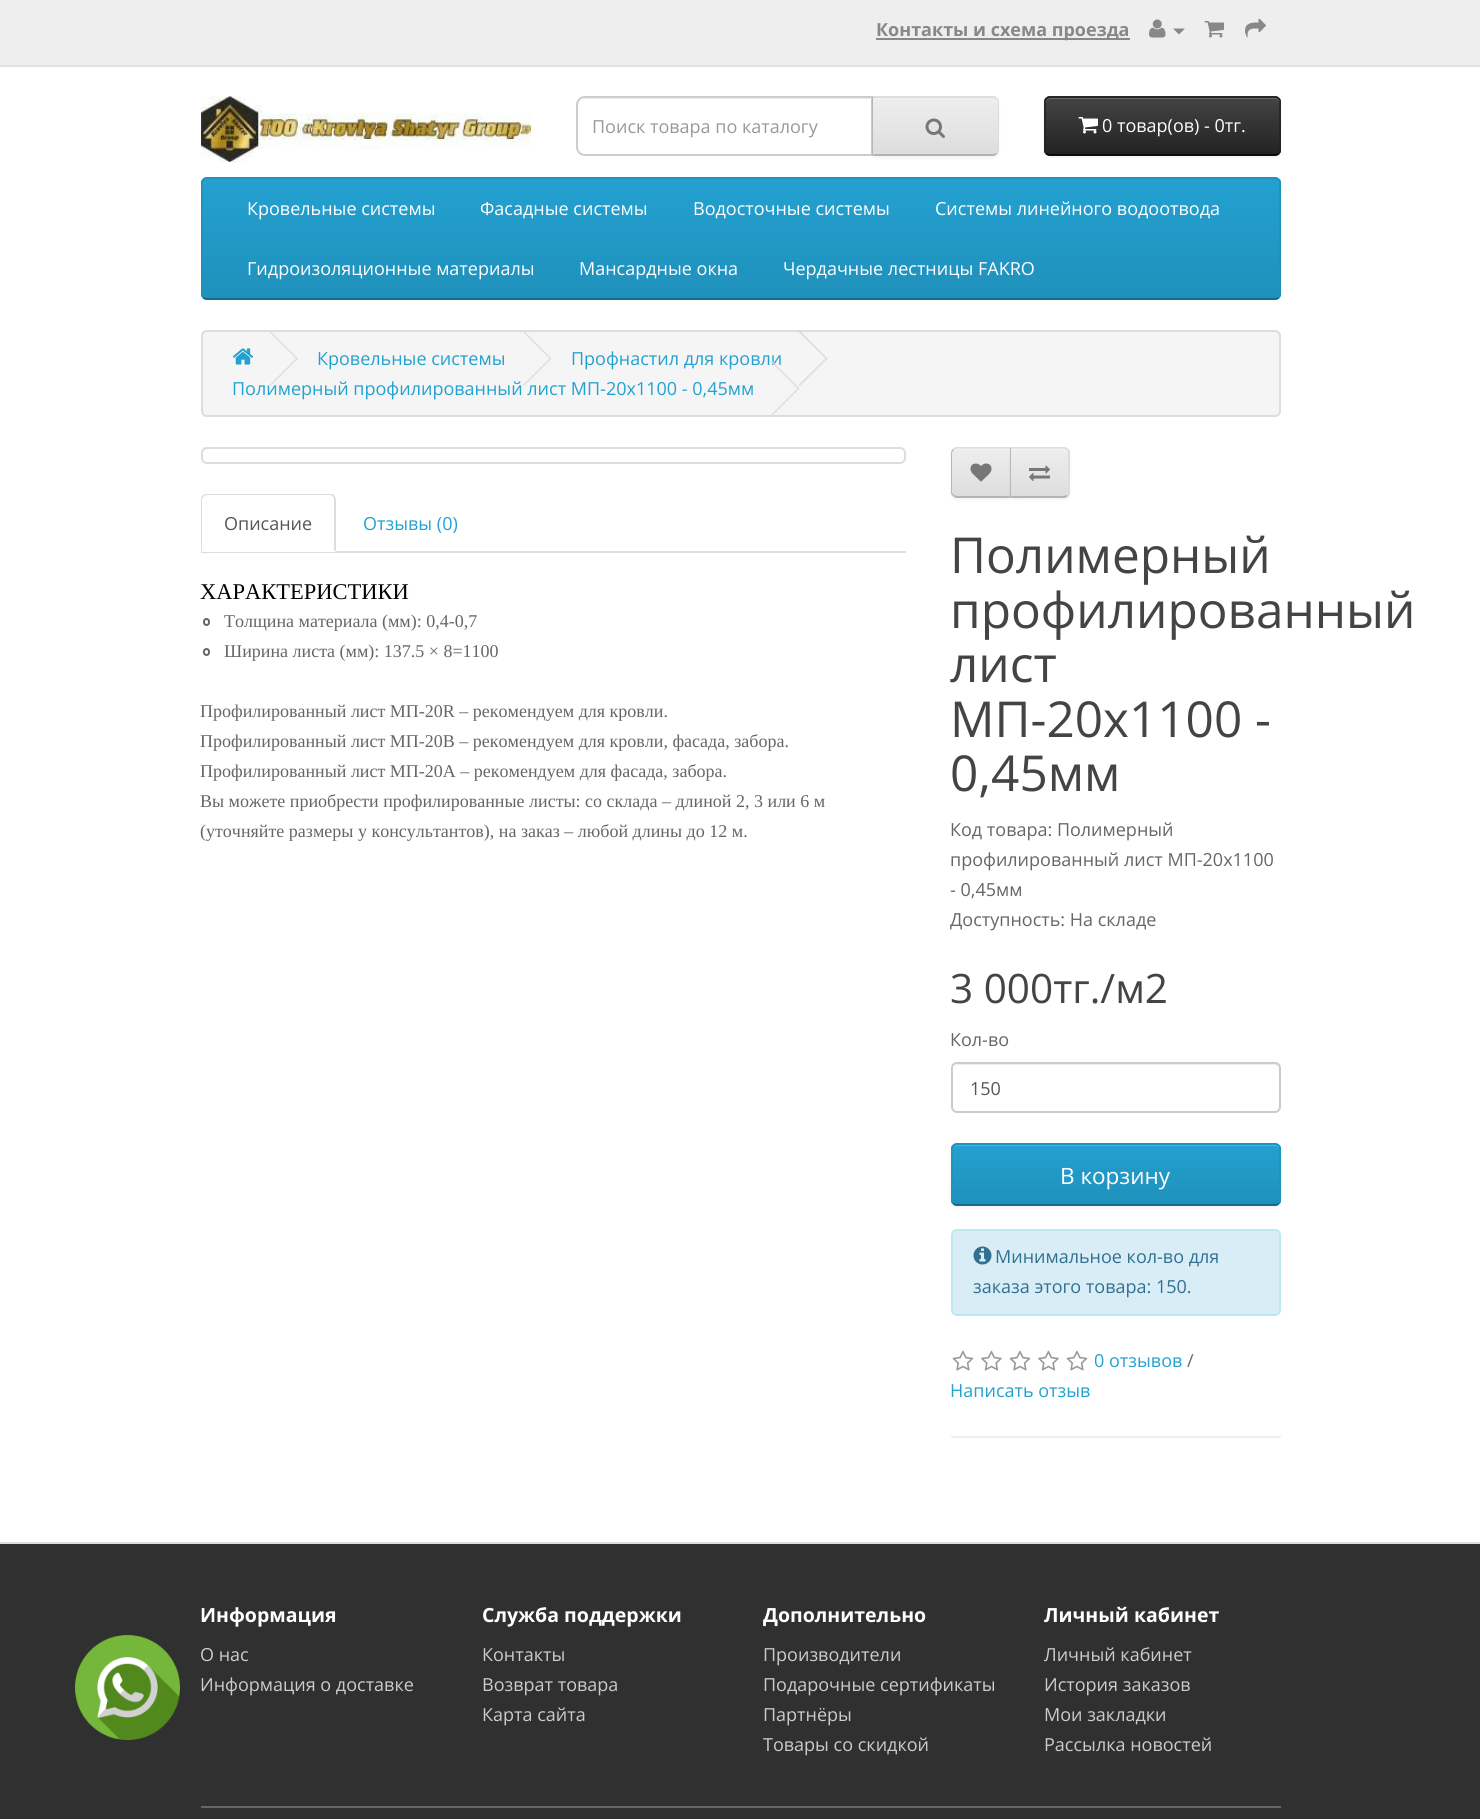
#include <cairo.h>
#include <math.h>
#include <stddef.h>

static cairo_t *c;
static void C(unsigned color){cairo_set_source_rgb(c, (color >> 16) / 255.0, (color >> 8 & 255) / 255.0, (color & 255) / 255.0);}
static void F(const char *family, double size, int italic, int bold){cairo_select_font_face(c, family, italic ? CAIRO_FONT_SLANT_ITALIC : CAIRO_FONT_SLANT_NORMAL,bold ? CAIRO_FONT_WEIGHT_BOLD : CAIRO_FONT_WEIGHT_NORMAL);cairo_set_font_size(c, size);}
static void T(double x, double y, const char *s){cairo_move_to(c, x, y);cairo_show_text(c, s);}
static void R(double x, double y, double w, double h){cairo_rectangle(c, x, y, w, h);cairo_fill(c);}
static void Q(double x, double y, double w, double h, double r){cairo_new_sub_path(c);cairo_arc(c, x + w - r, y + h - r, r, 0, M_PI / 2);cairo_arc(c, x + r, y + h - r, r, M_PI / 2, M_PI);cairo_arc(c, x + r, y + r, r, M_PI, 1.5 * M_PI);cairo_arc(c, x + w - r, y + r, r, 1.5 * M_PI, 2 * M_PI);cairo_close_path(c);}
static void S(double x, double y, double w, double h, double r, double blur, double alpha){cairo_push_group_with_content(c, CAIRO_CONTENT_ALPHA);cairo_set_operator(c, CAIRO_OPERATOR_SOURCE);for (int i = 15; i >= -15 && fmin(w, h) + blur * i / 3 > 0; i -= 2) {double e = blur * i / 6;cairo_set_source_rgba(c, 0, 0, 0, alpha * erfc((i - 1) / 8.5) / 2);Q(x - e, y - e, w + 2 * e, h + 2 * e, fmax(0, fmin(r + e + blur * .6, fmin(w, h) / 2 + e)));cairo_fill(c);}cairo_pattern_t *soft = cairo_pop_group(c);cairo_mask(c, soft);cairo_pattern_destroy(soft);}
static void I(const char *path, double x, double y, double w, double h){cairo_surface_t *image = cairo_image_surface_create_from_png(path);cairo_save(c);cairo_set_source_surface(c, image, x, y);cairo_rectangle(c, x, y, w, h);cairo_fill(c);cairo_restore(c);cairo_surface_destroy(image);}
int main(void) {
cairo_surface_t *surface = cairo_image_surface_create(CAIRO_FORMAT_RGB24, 1480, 1819);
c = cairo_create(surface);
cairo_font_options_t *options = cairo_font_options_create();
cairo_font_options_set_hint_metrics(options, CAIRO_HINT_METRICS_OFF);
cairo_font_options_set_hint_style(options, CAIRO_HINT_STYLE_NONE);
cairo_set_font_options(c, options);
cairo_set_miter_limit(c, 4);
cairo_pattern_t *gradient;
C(0xffffff);
cairo_paint(c);
C(0xeeeeee);
R(0,0,1480,65);
C(0xe2e2e2);
R(0,65,1480,2);
C(0x888888);
R(876,38,254,2);
F("Open Sans",18,0,1);
T(876,36,"Контакты и схема проезда");
I("1.png",1149,19,17,19);
cairo_new_path(c);
cairo_move_to(c,1173,28.5);
cairo_line_to(c,1185,28.5);
cairo_line_to(c,1179,34.5);
cairo_close_path(c);
cairo_fill(c);
I("2.png",1204,21,20,17);
I("3.png",1245,18,21,20);
I("4.png",201,96,330,66);
C(0xececec);
cairo_new_path(c);
cairo_move_to(c,585,99);
cairo_line_to(c,872,99);
cairo_line_to(c,872,98);
cairo_line_to(c,586,98);
cairo_curve_to(c,582,98,578,102,578,106);
cairo_curve_to(c,578,102,581,99,585,99);
cairo_close_path(c);
cairo_fill(c);
cairo_new_path(c);
cairo_move_to(c,585,97);
cairo_line_to(c,872,97);
cairo_line_to(c,872,155);
cairo_line_to(c,585,155);
cairo_curve_to(c,580.5,155,577,151.5,577,147);
cairo_line_to(c,577,105);
cairo_curve_to(c,577,100.5,580.5,97,585,97);
cairo_close_path(c);
C(0xcccccc);
cairo_stroke(c);
F("Open Sans",18,0,0);
C(0x999999);
T(592,133,"Поиск товара по каталогу");
C(0x000000);
S(872,98,127,60,6,1.5,.05);
C(0xe7e7e7);
cairo_new_path(c);
cairo_move_to(c,872,96);
cairo_line_to(c,993,96);
cairo_curve_to(c,996.5,96,999,98.5,999,102);
cairo_line_to(c,999,150);
cairo_curve_to(c,999,153.5,996.5,156,993,156);
cairo_line_to(c,872,156);
cairo_close_path(c);
cairo_fill(c);
cairo_save(c);
cairo_new_path(c);
cairo_move_to(c,872,96);
cairo_line_to(c,993,96);
cairo_curve_to(c,996.5,96,999,98.5,999,102);
cairo_line_to(c,999,150);
cairo_curve_to(c,999,153.5,996.5,156,993,156);
cairo_line_to(c,872,156);
cairo_close_path(c);
cairo_clip(c);
gradient = cairo_pattern_create_linear(935,98,935,155);
cairo_pattern_add_color_stop_rgba(gradient,0,0.933,0.933,0.933,1);
cairo_pattern_add_color_stop_rgba(gradient,1,0.867,0.867,0.867,1);
cairo_set_source(c,gradient);
cairo_pattern_destroy(gradient);
R(873,98,126,57);
cairo_restore(c);
C(0xf1f1f1);
cairo_new_path(c);
cairo_move_to(c,873,99);
cairo_line_to(c,993,99);
cairo_curve_to(c,995,99,998,101,998,104);
cairo_line_to(c,998,103);
cairo_curve_to(c,998,100,996,98,993,98);
cairo_line_to(c,873,98);
cairo_close_path(c);
cairo_fill(c);
C(0xdddddd);
cairo_new_path(c);
cairo_move_to(c,872,96);
cairo_line_to(c,874,98);
cairo_line_to(c,993,98);
cairo_line_to(c,996,99);
cairo_line_to(c,997,98);
cairo_curve_to(c,996,97,994,96,993,96);
cairo_close_path(c);
cairo_fill(c);
cairo_new_path(c);
cairo_move_to(c,999,150);
cairo_line_to(c,999,102);
cairo_curve_to(c,999,100,998,99,997,98);
cairo_line_to(c,996,99);
cairo_curve_to(c,997,100,998,101,998,102);
cairo_line_to(c,998,150);
cairo_curve_to(c,998,151,997,152,996,153);
cairo_line_to(c,997,154);
cairo_curve_to(c,998,153,999,152,999,150);
cairo_close_path(c);
cairo_fill(c);
C(0xb3b3b3);
cairo_new_path(c);
cairo_move_to(c,872,156);
cairo_line_to(c,994,156);
cairo_line_to(c,997,154);
cairo_line_to(c,996,153);
cairo_line_to(c,993,154);
cairo_line_to(c,874,154);
cairo_close_path(c);
cairo_fill(c);
C(0xb7b7b7);
cairo_new_path(c);
cairo_move_to(c,873,98);
cairo_line_to(c,874,98);
cairo_line_to(c,872,96);
cairo_line_to(c,872,156);
cairo_line_to(c,874,154);
cairo_line_to(c,873,154);
cairo_close_path(c);
cairo_fill(c);
I("5.png",925,118,20,20);
C(0x000000);
S(1044,98,237,60,6,1.5,.05);
C(0x363636);
Q(1044,96,237,60,6);
cairo_fill(c);
cairo_save(c);
Q(1044,96,237,60,6);
cairo_clip(c);
gradient = cairo_pattern_create_linear(1163,97,1163,155);
cairo_pattern_add_color_stop_rgba(gradient,0,0.267,0.267,0.267,1);
cairo_pattern_add_color_stop_rgba(gradient,1,0.133,0.133,0.133,1);
cairo_set_source(c,gradient);
cairo_pattern_destroy(gradient);
R(1044,98,237,57);
cairo_restore(c);
C(0x696969);
cairo_new_path(c);
cairo_move_to(c,1050,99);
cairo_line_to(c,1275,99);
cairo_curve_to(c,1277,99,1280,101,1280,104);
cairo_line_to(c,1280,103);
cairo_curve_to(c,1280,100,1278,98,1275,98);
cairo_line_to(c,1051,98);
cairo_curve_to(c,1048,98,1046,100,1046,103);
cairo_line_to(c,1046,104);
cairo_curve_to(c,1046,101,1048,99,1050,99);
cairo_close_path(c);
cairo_fill(c);
cairo_new_path(c);
cairo_move_to(c,1278.5,153.5);
cairo_curve_to(c,1277.5,154.5,1276.5,155,1275,155);
cairo_line_to(c,1050,155);
cairo_curve_to(c,1048.5,155,1047.5,154.5,1046.5,153.5);
C(0x000000);
cairo_set_line_width(c,1.5);
cairo_stroke(c);
cairo_new_path(c);
cairo_move_to(c,1046.5,153.5);
cairo_curve_to(c,1045.5,152.5,1045,151.5,1045,150);
cairo_line_to(c,1045,102);
cairo_curve_to(c,1045,100.5,1045.5,99.5,1046.5,98.5);
cairo_curve_to(c,1047.5,97.5,1048.5,97,1050,97);
cairo_line_to(c,1275,97);
cairo_curve_to(c,1276.5,97,1277.5,97.5,1278.5,98.5);
cairo_curve_to(c,1279.5,99.5,1280,100.5,1280,102);
cairo_line_to(c,1280,150);
cairo_curve_to(c,1280,151.5,1279.5,152.5,1278.5,153.5);
C(0x222222);
cairo_stroke(c);
I("6.png",1078,117,20,17);
C(0xffffff);
T(1102,132,"0 товар(ов) - 0тг.");
C(0x229ac8);
Q(201,177,1080,123,6);
cairo_fill(c);
cairo_save(c);
Q(201,177,1080,123,6);
cairo_clip(c);
gradient = cairo_pattern_create_linear(741,178,741,299);
cairo_pattern_add_color_stop_rgba(gradient,0,0.137,0.631,0.82,1);
cairo_pattern_add_color_stop_rgba(gradient,1,0.122,0.565,0.733,1);
cairo_set_source(c,gradient);
cairo_pattern_destroy(gradient);
R(201,179,1080,120);
cairo_restore(c);
cairo_new_path(c);
cairo_move_to(c,1278.5,297.5);
cairo_curve_to(c,1277.5,298.5,1276.5,299,1275,299);
cairo_line_to(c,207,299);
cairo_curve_to(c,205.5,299,204.5,298.5,203.5,297.5);
C(0x145e7a);
cairo_stroke(c);
cairo_new_path(c);
cairo_move_to(c,203.5,297.5);
cairo_curve_to(c,202.5,296.5,202,295.5,202,294);
cairo_line_to(c,202,183);
cairo_curve_to(c,202,181.5,202.5,180.5,203.5,179.5);
cairo_curve_to(c,204.5,178.5,205.5,178,207,178);
cairo_line_to(c,1275,178);
cairo_curve_to(c,1276.5,178,1277.5,178.5,1278.5,179.5);
cairo_curve_to(c,1279.5,180.5,1280,181.5,1280,183);
cairo_line_to(c,1280,294);
cairo_curve_to(c,1280,295.5,1279.5,296.5,1278.5,297.5);
C(0x1f90bb);
cairo_stroke(c);
C(0xffffff);
T(247,215,"Кровельные системы");
T(480,215,"Фасадные системы");
T(693,215,"Водосточные системы");
T(935,215,"Системы линейного водоотвода");
T(247,275,"Гидроизоляционные материалы");
T(579,275,"Мансардные окна");
T(783,275,"Чердачные лестницы FAKRO");
C(0xf5f5f5);
Q(202,331,1078,85,5);
cairo_fill_preserve(c);
C(0xdddddd);
cairo_set_line_width(c,2);
cairo_stroke(c);
I("7.png",232,348,21,17);
cairo_new_path(c);
cairo_move_to(c,269.5,332);
cairo_line_to(c,270.5,331);
cairo_line_to(c,298,358.5);
cairo_line_to(c,297,359.5);
cairo_close_path(c);
cairo_fill(c);
cairo_new_path(c);
cairo_move_to(c,269.5,385);
cairo_line_to(c,297,357.5);
cairo_line_to(c,298,358.5);
cairo_line_to(c,270.5,386);
cairo_close_path(c);
cairo_fill(c);
C(0x23a1d1);
T(317,365,"Кровельные системы");
C(0xdddddd);
cairo_new_path(c);
cairo_move_to(c,523,332);
cairo_line_to(c,524,331);
cairo_line_to(c,551.5,358.5);
cairo_line_to(c,550.5,359.5);
cairo_close_path(c);
cairo_fill(c);
cairo_new_path(c);
cairo_move_to(c,523,385);
cairo_line_to(c,550.5,357.5);
cairo_line_to(c,551.5,358.5);
cairo_line_to(c,524,386);
cairo_close_path(c);
cairo_fill(c);
C(0x23a1d1);
T(571,365,"Профнастил для кровли");
C(0xdddddd);
cairo_new_path(c);
cairo_move_to(c,798.5,332);
cairo_line_to(c,800,331);
cairo_line_to(c,827.5,358.5);
cairo_line_to(c,826.5,359.5);
cairo_close_path(c);
cairo_fill(c);
cairo_new_path(c);
cairo_move_to(c,798.5,385);
cairo_line_to(c,826.5,357.5);
cairo_line_to(c,827.5,358.5);
cairo_line_to(c,800,386);
cairo_close_path(c);
cairo_fill(c);
C(0x23a1d1);
T(232,395,"Полимерный профилированный лист МП-20х1100 - 0,45мм");
C(0xdddddd);
cairo_new_path(c);
cairo_move_to(c,771,362);
cairo_line_to(c,772,361);
cairo_line_to(c,799.5,388.5);
cairo_line_to(c,798.5,389.5);
cairo_close_path(c);
cairo_fill(c);
cairo_new_path(c);
cairo_move_to(c,771,415);
cairo_line_to(c,798.5,387.5);
cairo_line_to(c,799.5,388.5);
cairo_line_to(c,772,416);
cairo_close_path(c);
cairo_fill(c);
Q(202,448,703,15,5);
cairo_stroke(c);
R(201,551,705,2);
C(0xffffff);
cairo_new_path(c);
cairo_move_to(c,207,494);
cairo_line_to(c,330,494);
cairo_curve_to(c,333.5,494,336,496.5,336,500);
cairo_line_to(c,336,552);
cairo_line_to(c,201,552);
cairo_line_to(c,201,500);
cairo_curve_to(c,201,496.5,203.5,494,207,494);
cairo_close_path(c);
cairo_fill(c);
C(0xdddddd);
cairo_new_path(c);
cairo_move_to(c,207,494);
cairo_curve_to(c,206,494,204,494,203,495);
cairo_line_to(c,204,496);
cairo_line_to(c,207,495);
cairo_line_to(c,331,495);
cairo_line_to(c,333,497);
cairo_line_to(c,334,495);
cairo_curve_to(c,333,494,331,494,330,494);
cairo_close_path(c);
cairo_fill(c);
cairo_new_path(c);
cairo_move_to(c,334,495);
cairo_curve_to(c,335,496,336,498,336,500);
cairo_line_to(c,336,552);
cairo_line_to(c,334,550);
cairo_line_to(c,334,500);
cairo_curve_to(c,334,499,334,497,333,497);
cairo_close_path(c);
cairo_fill(c);
cairo_new_path(c);
cairo_move_to(c,201,552);
cairo_line_to(c,203,550);
cairo_line_to(c,202,550);
cairo_line_to(c,202,499);
cairo_line_to(c,204,496);
cairo_line_to(c,203,495);
cairo_curve_to(c,202,496,201,498,201,500);
cairo_close_path(c);
cairo_fill(c);
C(0x555555);
T(224,530,"Описание");
C(0x23a1d1);
T(363,530,"Отзывы (0)");
F("Liberation Serif",22.5,0,0);
C(0x000000);
T(200,599,"ХАРАКТЕРИСТИКИ");
Q(204,619,5,6,2.5);
C(0x666666);
cairo_stroke(c);
F("Liberation Serif",18,0,0);
T(224,627,"Толщина материала (мм): 0,4-0,7");
Q(204,649,5,6,2.5);
cairo_stroke(c);
T(224,657,"Ширина листа (мм): 137.5 × 8=1100");
T(200,717,"Профилированный лист МП-20R – рекомендуем для кровли.");
T(200,747,"Профилированный лист МП-20B – рекомендуем для кровли, фасада, забора.");
T(200,777,"Профилированный лист МП-20А – рекомендуем для фасада, забора.");
T(200,807,"Вы можете приобрести профилированные листы: со склада – длиной 2, 3 или 6 м");
T(200,837,"(уточняйте размеры у консультантов), на заказ – любой длины до 12 м.");
C(0x000000);
S(951,449,60,51,6,1.5,.05);
C(0xe7e7e7);
cairo_new_path(c);
cairo_move_to(c,957,447);
cairo_line_to(c,1011,447);
cairo_line_to(c,1011,498);
cairo_line_to(c,957,498);
cairo_curve_to(c,953.5,498,951,495.5,951,492);
cairo_line_to(c,951,453);
cairo_curve_to(c,951,449.5,953.5,447,957,447);
cairo_close_path(c);
cairo_fill(c);
cairo_save(c);
cairo_new_path(c);
cairo_move_to(c,957,447);
cairo_line_to(c,1011,447);
cairo_line_to(c,1011,498);
cairo_line_to(c,957,498);
cairo_curve_to(c,953.5,498,951,495.5,951,492);
cairo_line_to(c,951,453);
cairo_curve_to(c,951,449.5,953.5,447,957,447);
cairo_close_path(c);
cairo_clip(c);
gradient = cairo_pattern_create_linear(981,449,981,497);
cairo_pattern_add_color_stop_rgba(gradient,0,0.933,0.933,0.933,1);
cairo_pattern_add_color_stop_rgba(gradient,1,0.867,0.867,0.867,1);
cairo_set_source(c,gradient);
cairo_pattern_destroy(gradient);
R(951,449,59,48);
cairo_restore(c);
C(0xf1f1f1);
cairo_new_path(c);
cairo_move_to(c,957,450);
cairo_line_to(c,1010,450);
cairo_line_to(c,1010,449);
cairo_line_to(c,958,449);
cairo_curve_to(c,956,449,955,450,954,451);
cairo_close_path(c);
cairo_fill(c);
C(0xdddddd);
cairo_new_path(c);
cairo_move_to(c,957,447);
cairo_curve_to(c,956,447,954,448,953,449);
cairo_line_to(c,954,450);
cairo_line_to(c,957,448);
cairo_line_to(c,1010,448);
cairo_line_to(c,1011,447);
cairo_close_path(c);
cairo_fill(c);
C(0xb3b3b3);
cairo_new_path(c);
cairo_move_to(c,1011,498);
cairo_line_to(c,1009,496);
cairo_line_to(c,957,496);
cairo_line_to(c,954,495);
cairo_line_to(c,953,496);
cairo_curve_to(c,954,497,956,498,957,498);
cairo_close_path(c);
cairo_fill(c);
C(0xb7b7b7);
cairo_new_path(c);
cairo_move_to(c,951,453);
cairo_line_to(c,951,492);
cairo_curve_to(c,951,494,952,495,953,496);
cairo_line_to(c,954,495);
cairo_curve_to(c,953,494,952,493,952,492);
cairo_line_to(c,952,453);
cairo_curve_to(c,952,452,953,451,954,450);
cairo_line_to(c,953,449);
cairo_curve_to(c,952,450,951,452,951,453);
cairo_close_path(c);
cairo_fill(c);
I("8.png",970,463,22,19);
C(0x000000);
S(1010,449,60,51,6,1.5,.05);
C(0xe7e7e7);
cairo_new_path(c);
cairo_move_to(c,1010,447);
cairo_line_to(c,1064,447);
cairo_curve_to(c,1067.5,447,1070,449.5,1070,453);
cairo_line_to(c,1070,492);
cairo_curve_to(c,1070,495.5,1067.5,498,1064,498);
cairo_line_to(c,1010,498);
cairo_close_path(c);
cairo_fill(c);
cairo_save(c);
cairo_new_path(c);
cairo_move_to(c,1010,447);
cairo_line_to(c,1064,447);
cairo_curve_to(c,1067.5,447,1070,449.5,1070,453);
cairo_line_to(c,1070,492);
cairo_curve_to(c,1070,495.5,1067.5,498,1064,498);
cairo_line_to(c,1010,498);
cairo_close_path(c);
cairo_clip(c);
gradient = cairo_pattern_create_linear(1040,449,1040,497);
cairo_pattern_add_color_stop_rgba(gradient,0,0.933,0.933,0.933,1);
cairo_pattern_add_color_stop_rgba(gradient,1,0.867,0.867,0.867,1);
cairo_set_source(c,gradient);
cairo_pattern_destroy(gradient);
R(1011,449,59,48);
cairo_restore(c);
C(0xf1f1f1);
cairo_new_path(c);
cairo_move_to(c,1011,450);
cairo_line_to(c,1064,450);
cairo_curve_to(c,1066,450,1068,452,1068,454);
cairo_curve_to(c,1068,451,1066,449,1063,449);
cairo_line_to(c,1011,449);
cairo_close_path(c);
cairo_fill(c);
C(0xdddddd);
cairo_new_path(c);
cairo_move_to(c,1010,447);
cairo_line_to(c,1011,448);
cairo_line_to(c,1064,448);
cairo_line_to(c,1067,450);
cairo_line_to(c,1068,449);
cairo_curve_to(c,1067,448,1065,447,1064,447);
cairo_close_path(c);
cairo_fill(c);
cairo_new_path(c);
cairo_move_to(c,1070,494);
cairo_line_to(c,1068,496);
cairo_line_to(c,1066,495);
cairo_curve_to(c,1067,494,1068,493,1068,492);
cairo_line_to(c,1068,453);
cairo_curve_to(c,1068,452,1068,451,1067,450);
cairo_line_to(c,1068,449);
cairo_line_to(c,1070,451);
cairo_close_path(c);
cairo_fill(c);
C(0xb3b3b3);
cairo_new_path(c);
cairo_move_to(c,1010,498);
cairo_line_to(c,1064,498);
cairo_curve_to(c,1065,498,1067,497,1068,496);
cairo_line_to(c,1066,495);
cairo_line_to(c,1064,496);
cairo_line_to(c,1012,496);
cairo_close_path(c);
cairo_fill(c);
C(0xb7b7b7);
cairo_new_path(c);
cairo_move_to(c,1010,448);
cairo_line_to(c,1010,498);
cairo_line_to(c,1012,496);
cairo_line_to(c,1011,496);
cairo_line_to(c,1011,448);
cairo_close_path(c);
cairo_fill(c);
I("9.png",1029,465,21,16);
F("Open Sans",49.5,0,0);
C(0x444444);
T(950,573,"Полимерный");
T(950,628,"профилированный");
T(950,682,"лист");
T(950,737,"МП-20х1100 -");
T(950,791,"0,45мм");
F("Open Sans",18,0,0);
C(0x666666);
T(950,836,"Код товара: Полимерный");
T(950,866,"профилированный лист МП-20х1100");
T(950,896,"- 0,45мм");
T(950,926,"Доступность: На складе");
F("Open Sans",40.5,0,0);
C(0x444444);
T(950,1003,"3 000тг./м2");
F("Open Sans",18,0,0);
C(0x666666);
T(950,1046,"Кол-во");
C(0xececec);
cairo_new_path(c);
cairo_move_to(c,957,1065);
cairo_line_to(c,1275,1065);
cairo_curve_to(c,1277,1065,1280,1067,1280,1070);
cairo_line_to(c,1280,1069);
cairo_curve_to(c,1280,1066,1278,1064,1275,1064);
cairo_line_to(c,958,1064);
cairo_curve_to(c,956,1064,955,1065,954,1066);
cairo_close_path(c);
cairo_fill(c);
Q(952,1063,328,49,5);
C(0xcccccc);
cairo_stroke(c);
C(0x555555);
T(970,1095,"150");
C(0x000000);
S(951,1145,330,63,6,1.5,.05);
C(0x229ac8);
Q(951,1143,330,63,6);
cairo_fill(c);
cairo_save(c);
Q(951,1143,330,63,6);
cairo_clip(c);
gradient = cairo_pattern_create_linear(1116,1145,1116,1205);
cairo_pattern_add_color_stop_rgba(gradient,0,0.137,0.631,0.82,1);
cairo_pattern_add_color_stop_rgba(gradient,1,0.122,0.565,0.733,1);
cairo_set_source(c,gradient);
cairo_pattern_destroy(gradient);
R(951,1145,330,60);
cairo_restore(c);
C(0x4fb4da);
cairo_new_path(c);
cairo_move_to(c,957,1146);
cairo_line_to(c,1275,1146);
cairo_curve_to(c,1277,1146,1280,1148,1280,1150);
cairo_curve_to(c,1280,1147,1278,1145,1275,1145);
cairo_line_to(c,958,1145);
cairo_curve_to(c,956,1145,955,1146,954,1147);
cairo_close_path(c);
cairo_fill(c);
cairo_new_path(c);
cairo_move_to(c,1278.5,1203.5);
cairo_curve_to(c,1277.5,1204.5,1276.5,1205,1275,1205);
cairo_line_to(c,957,1205);
cairo_curve_to(c,955.5,1205,954.5,1204.5,953.5,1203.5);
C(0x145e7a);
cairo_set_line_width(c,1.5);
cairo_stroke(c);
cairo_new_path(c);
cairo_move_to(c,953.5,1203.5);
cairo_curve_to(c,952.5,1202.5,952,1201.5,952,1200);
cairo_line_to(c,952,1149);
cairo_curve_to(c,952,1147.5,952.5,1146.5,953.5,1145.5);
cairo_curve_to(c,954.5,1144.5,955.5,1144,957,1144);
cairo_line_to(c,1275,1144);
cairo_curve_to(c,1276.5,1144,1277.5,1144.5,1278.5,1145.5);
cairo_curve_to(c,1279.5,1146.5,1280,1147.5,1280,1149);
cairo_line_to(c,1280,1200);
cairo_curve_to(c,1280,1201.5,1279.5,1202.5,1278.5,1203.5);
C(0x1f90bb);
cairo_stroke(c);
F("Open Sans",22.5,0,0);
C(0xffffff);
T(1060,1184,"В корзину");
C(0xd9edf7);
Q(952,1230,328,85,5);
cairo_fill_preserve(c);
C(0xbce8f1);
cairo_set_line_width(c,2);
cairo_stroke(c);
I("10.png",973,1246,19,19);
F("Open Sans",18,0,0);
C(0x31708f);
T(995,1263,"Минимальное кол-во для");
T(973,1293,"заказа этого товара: 150.");
I("11.png",952,1350,22,21);
I("12.png",981,1350,21,21);
I("11.png",1009,1350,22,21);
I("12.png",1038,1350,21,21);
I("11.png",1066,1350,22,21);
C(0x23a1d1);
T(1094,1367,"0 отзывов");
C(0x666666);
T(1187,1367,"/");
C(0x23a1d1);
T(950,1397,"Написать отзыв");
C(0xeeeeee);
R(951,1436,330,2);
C(0x303030);
R(0,1544,1480,275);
C(0xdddddd);
R(0,1542,1480,2);
I("13.png",75,1635,105,105);
F("Open Sans",19.5,0,1);
C(0xffffff);
T(200,1622,"Информация");
F("Open Sans",18,0,0);
C(0xcccccc);
T(200,1661,"О нас");
T(200,1691,"Информация о доставке");
F("Open Sans",19.5,0,1);
C(0xffffff);
T(482,1622,"Служба поддержки");
F("Open Sans",18,0,0);
C(0xcccccc);
T(482,1661,"Контакты");
T(482,1691,"Возврат товара");
T(482,1721,"Карта сайта");
F("Open Sans",19.5,0,1);
C(0xffffff);
T(763,1622,"Дополнительно");
F("Open Sans",18,0,0);
C(0xcccccc);
T(763,1661,"Производители");
T(763,1691,"Подарочные сертификаты");
T(763,1721,"Партнёры");
T(763,1751,"Товары со скидкой");
F("Open Sans",19.5,0,1);
C(0xffffff);
T(1044,1622,"Личный кабинет");
F("Open Sans",18,0,0);
C(0xcccccc);
T(1044,1661,"Личный кабинет");
T(1044,1691,"История заказов");
T(1044,1721,"Мои закладки");
T(1044,1751,"Рассылка новостей");
C(0x666666);
R(201,1806,1080,2);
cairo_surface_write_to_png(surface, "o.png");
cairo_font_options_destroy(options);
cairo_destroy(c);
cairo_surface_destroy(surface);
return 0;
}
